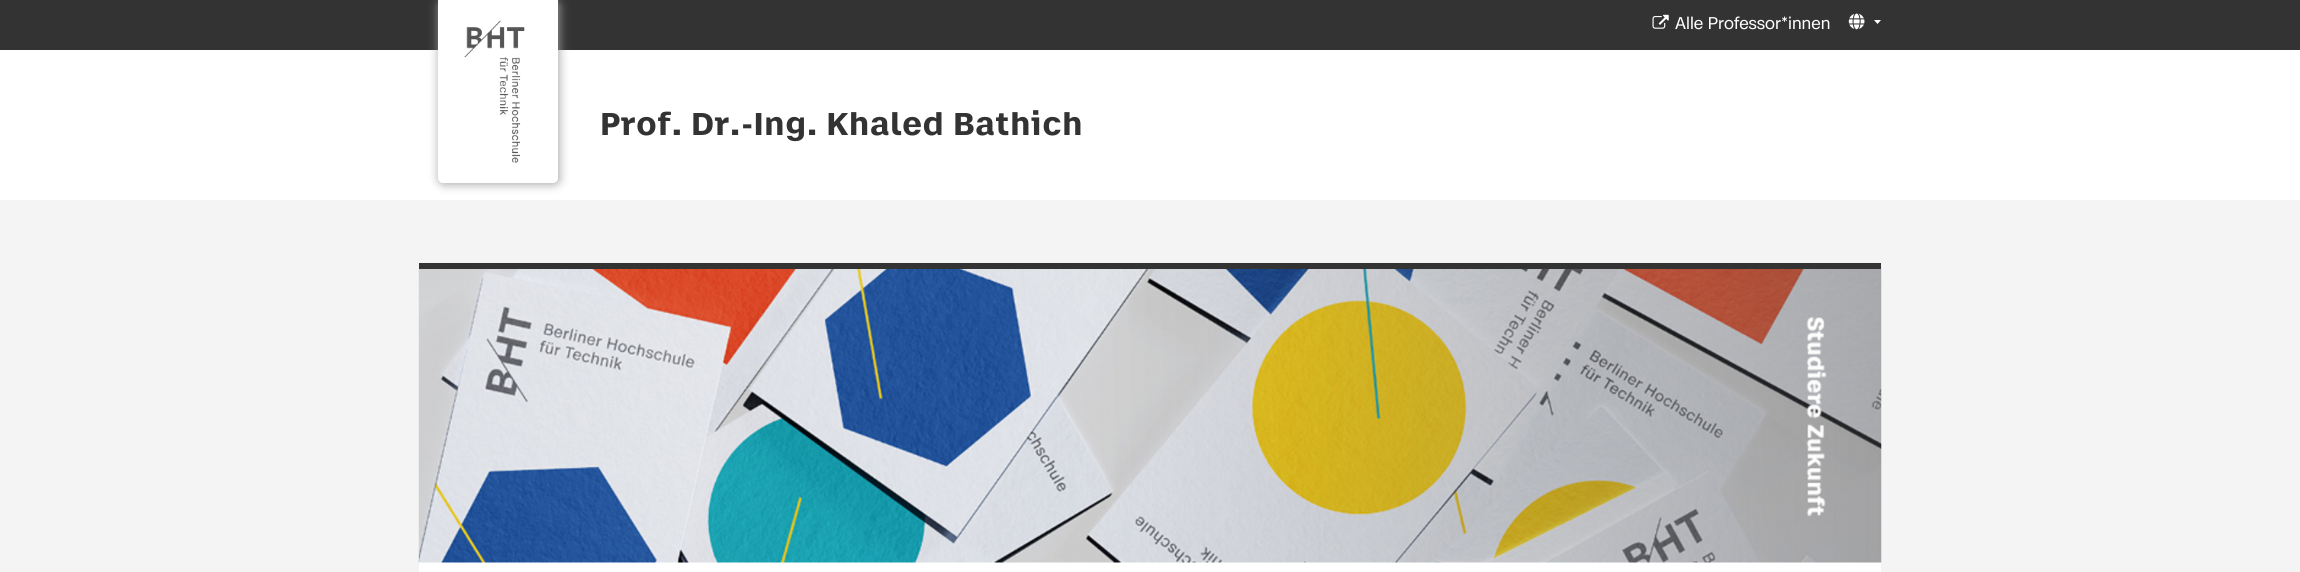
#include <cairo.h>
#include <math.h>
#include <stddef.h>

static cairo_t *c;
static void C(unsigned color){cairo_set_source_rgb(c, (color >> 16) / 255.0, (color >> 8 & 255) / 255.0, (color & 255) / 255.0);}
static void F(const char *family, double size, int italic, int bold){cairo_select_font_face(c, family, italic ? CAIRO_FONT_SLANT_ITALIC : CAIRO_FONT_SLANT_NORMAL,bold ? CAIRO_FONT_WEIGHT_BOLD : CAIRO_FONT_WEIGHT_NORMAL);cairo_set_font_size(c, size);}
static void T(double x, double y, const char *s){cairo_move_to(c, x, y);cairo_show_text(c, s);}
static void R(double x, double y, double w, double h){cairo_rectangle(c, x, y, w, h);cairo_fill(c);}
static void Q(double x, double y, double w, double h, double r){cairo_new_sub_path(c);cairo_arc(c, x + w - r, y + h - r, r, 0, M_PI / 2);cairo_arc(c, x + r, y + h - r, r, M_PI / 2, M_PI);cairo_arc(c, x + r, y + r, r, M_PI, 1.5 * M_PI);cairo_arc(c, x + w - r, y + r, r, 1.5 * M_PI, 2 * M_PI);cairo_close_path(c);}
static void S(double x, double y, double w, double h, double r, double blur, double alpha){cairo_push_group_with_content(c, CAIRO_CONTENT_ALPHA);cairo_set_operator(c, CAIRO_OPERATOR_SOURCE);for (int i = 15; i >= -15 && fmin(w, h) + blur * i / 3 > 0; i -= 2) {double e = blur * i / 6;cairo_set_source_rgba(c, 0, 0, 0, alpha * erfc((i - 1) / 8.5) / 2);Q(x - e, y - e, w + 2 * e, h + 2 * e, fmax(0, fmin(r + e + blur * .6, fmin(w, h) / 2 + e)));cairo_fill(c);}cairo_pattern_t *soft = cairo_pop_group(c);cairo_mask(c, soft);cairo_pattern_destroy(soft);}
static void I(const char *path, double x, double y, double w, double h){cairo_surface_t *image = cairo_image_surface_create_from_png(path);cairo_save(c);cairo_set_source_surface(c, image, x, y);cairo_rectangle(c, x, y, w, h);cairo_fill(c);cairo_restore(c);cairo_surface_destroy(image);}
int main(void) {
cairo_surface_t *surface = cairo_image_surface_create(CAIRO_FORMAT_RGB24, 2300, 572);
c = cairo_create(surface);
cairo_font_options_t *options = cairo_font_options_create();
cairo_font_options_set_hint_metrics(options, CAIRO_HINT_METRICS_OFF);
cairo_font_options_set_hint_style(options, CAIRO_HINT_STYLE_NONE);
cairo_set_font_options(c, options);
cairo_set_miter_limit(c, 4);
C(0xf4f4f4);
cairo_paint(c);
C(0x333333);
R(0,0,2300,50);
C(0xffffff);
R(0,50,2300,150);
C(0xa0a0a0);
S(439,1,120,183,5,5,1);
C(0xffffff);
cairo_new_path(c);
cairo_move_to(c,438.5,.5);
cairo_line_to(c,557.5,.5);
cairo_line_to(c,557.5,178);
cairo_curve_to(c,557.5,180.5,555.5,182.5,553,182.5);
cairo_line_to(c,443,182.5);
cairo_curve_to(c,440.5,182.5,438.5,180.5,438.5,178);
cairo_close_path(c);
cairo_fill_preserve(c);
cairo_set_line_width(c,1);
cairo_stroke(c);
I("1.png",464,20,61,143);
I("2.png",1652,14,17,15);
F("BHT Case",16.25,0,0);
T(1675,29,"Alle Professor*innen");
I("3.png",1848,13,17,17);
cairo_new_path(c);
cairo_move_to(c,1874,20);
cairo_line_to(c,1881,20);
cairo_line_to(c,1877.5,24);
cairo_close_path(c);
cairo_fill(c);
F("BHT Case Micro",30,0,1);
C(0x333333);
T(600,135,"Prof. Dr.-Ing. Khaled Bathich");
C(0xffffff);
R(419,562,1462,10);
I("4.png",418,268,1464,295);
C(0x333333);
R(419,263,1462,6);
cairo_surface_write_to_png(surface, "o.png");
cairo_font_options_destroy(options);
cairo_destroy(c);
cairo_surface_destroy(surface);
return 0;
}
